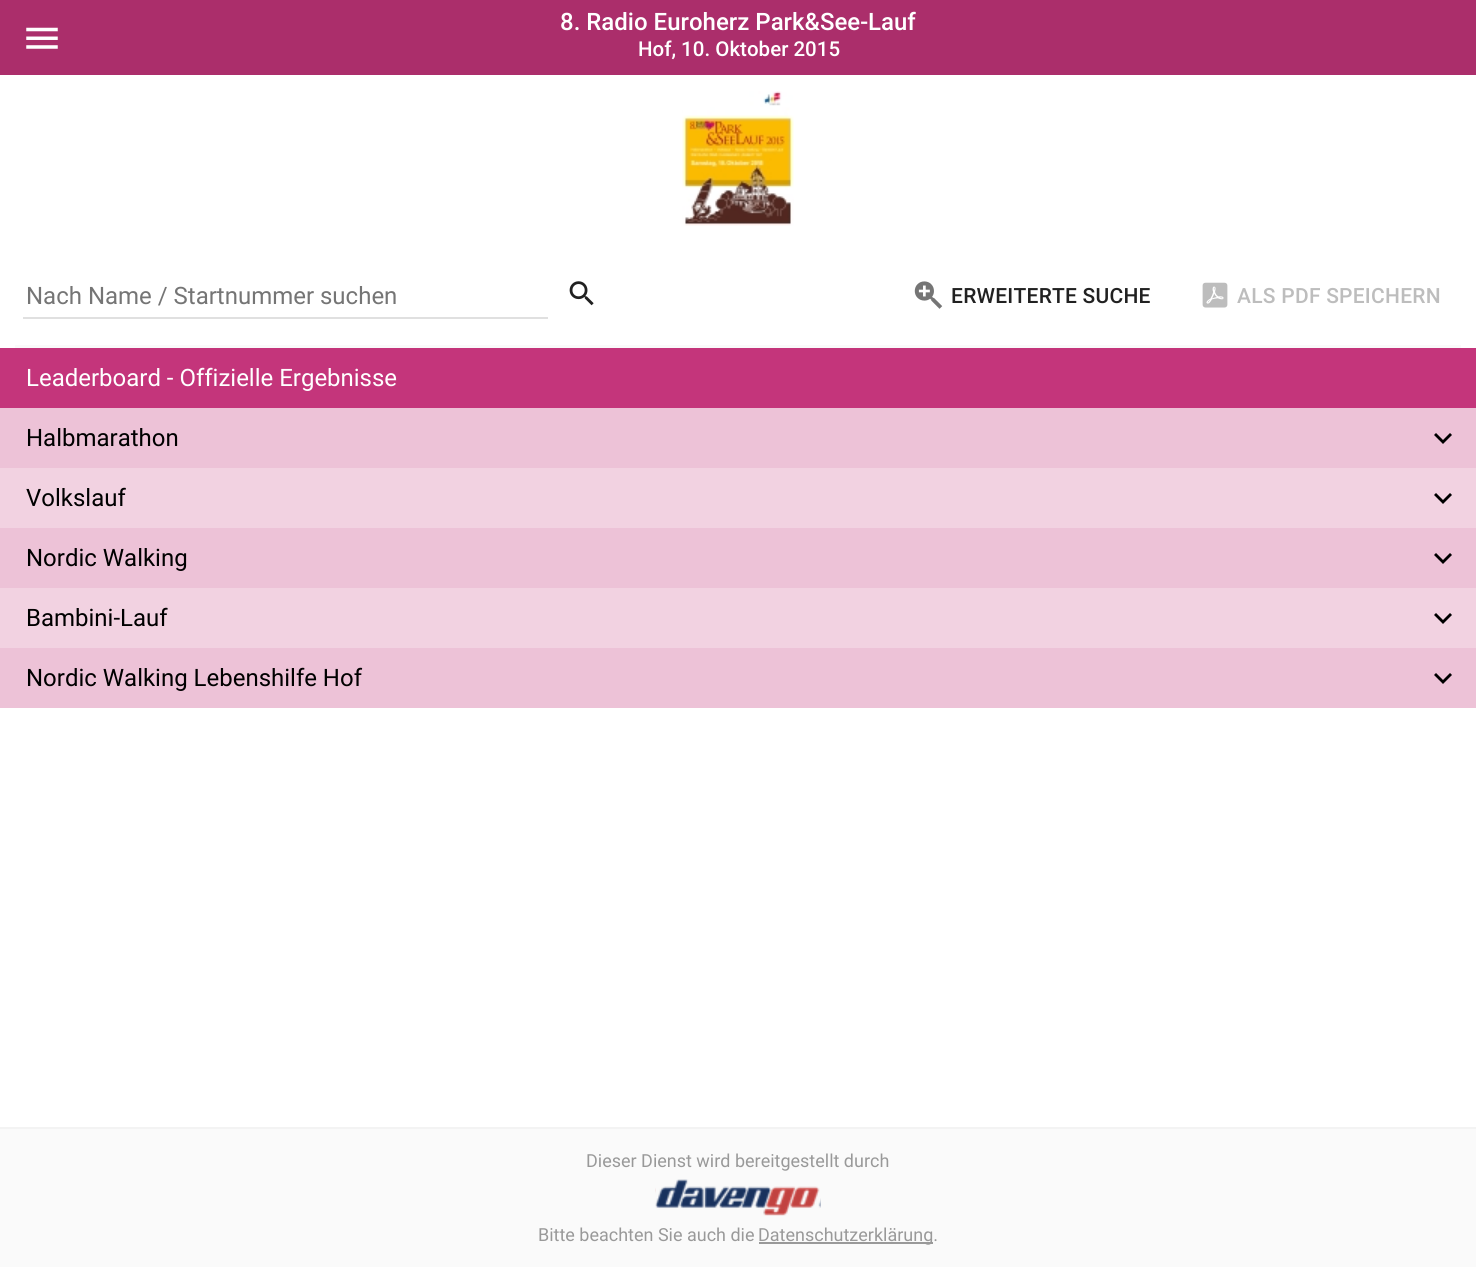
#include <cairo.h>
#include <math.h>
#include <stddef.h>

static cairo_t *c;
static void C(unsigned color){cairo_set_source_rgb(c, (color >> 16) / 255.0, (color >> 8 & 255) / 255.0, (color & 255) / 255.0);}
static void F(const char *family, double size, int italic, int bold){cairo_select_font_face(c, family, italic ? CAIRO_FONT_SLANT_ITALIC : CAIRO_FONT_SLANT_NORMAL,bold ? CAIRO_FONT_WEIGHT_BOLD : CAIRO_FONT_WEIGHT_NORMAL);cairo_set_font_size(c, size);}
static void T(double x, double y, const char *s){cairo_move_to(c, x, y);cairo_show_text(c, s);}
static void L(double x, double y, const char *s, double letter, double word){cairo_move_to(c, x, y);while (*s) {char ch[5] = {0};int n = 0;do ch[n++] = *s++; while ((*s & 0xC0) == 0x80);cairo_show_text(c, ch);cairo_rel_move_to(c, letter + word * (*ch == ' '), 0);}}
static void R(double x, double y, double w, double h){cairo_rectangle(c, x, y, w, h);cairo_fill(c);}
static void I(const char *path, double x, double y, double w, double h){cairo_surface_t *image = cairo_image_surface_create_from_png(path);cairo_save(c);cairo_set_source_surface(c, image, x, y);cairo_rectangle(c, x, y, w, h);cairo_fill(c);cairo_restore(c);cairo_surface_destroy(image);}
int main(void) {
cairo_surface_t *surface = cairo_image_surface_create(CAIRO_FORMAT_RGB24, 1476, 1267);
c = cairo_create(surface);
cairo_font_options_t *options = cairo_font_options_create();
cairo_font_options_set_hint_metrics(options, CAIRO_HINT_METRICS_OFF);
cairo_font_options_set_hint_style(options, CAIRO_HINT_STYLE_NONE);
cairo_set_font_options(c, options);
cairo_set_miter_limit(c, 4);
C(0xffffff);
cairo_paint(c);
C(0xab2e6b);
R(0,0,1476,75);
I("1.png",26,27,32,22);
F("Roboto Medium",24,0,0);
C(0xffffff);
T(560,30,"8. Radio Euroherz Park&See-Lauf");
F("Roboto Medium",20.5,0,0);
T(638,56,"Hof, 10. Oktober 2015");
I("2.png",682,91,112,135);
C(0xfafafa);
R(15,345,1446,3);
C(0xe0e0e0);
R(23,317,525,2);
F("Roboto",24,0,0);
C(0x757575);
T(26,304,"Nach Name / Startnummer suchen");
I("3.png",569,281,25,25);
I("4.png",914,281,29,28);
F("Roboto Medium",21,0,0);
C(0x212121);
L(951,303,"ERWEITERTE SUCHE",.25,0);
I("5.png",1202,282,26,26);
C(0xbdbdbd);
L(1237,303,"ALS PDF SPEICHERN",.25,0);
C(0xc4357b);
R(0,348,1476,60);
F("Roboto",24,0,0);
C(0xffffff);
T(26,386,"Leaderboard - Offizielle Ergebnisse");
C(0xedc2d7);
R(0,408,1476,60);
C(0x000000);
T(26,446,"Halbmarathon");
cairo_new_path(c);
cairo_move_to(c,1436,433);
cairo_line_to(c,1443,440);
cairo_line_to(c,1450,433);
cairo_line_to(c,1452,435);
cairo_line_to(c,1443,444);
cairo_line_to(c,1434,435);
cairo_close_path(c);
cairo_fill(c);
C(0xf2d2e1);
R(0,468,1476,60);
C(0x000000);
T(26,506,"Volkslauf");
cairo_new_path(c);
cairo_move_to(c,1436,493);
cairo_line_to(c,1443,500);
cairo_line_to(c,1450,493);
cairo_line_to(c,1452,495);
cairo_line_to(c,1443,504);
cairo_line_to(c,1434,495);
cairo_close_path(c);
cairo_fill(c);
C(0xedc2d7);
R(0,528,1476,60);
C(0x000000);
T(26,566,"Nordic Walking");
cairo_new_path(c);
cairo_move_to(c,1436,553);
cairo_line_to(c,1443,560);
cairo_line_to(c,1450,553);
cairo_line_to(c,1452,555);
cairo_line_to(c,1443,564);
cairo_line_to(c,1434,555);
cairo_close_path(c);
cairo_fill(c);
C(0xf2d2e1);
R(0,588,1476,60);
C(0x000000);
T(26,626,"Bambini-Lauf");
cairo_new_path(c);
cairo_move_to(c,1436,613);
cairo_line_to(c,1443,620);
cairo_line_to(c,1450,613);
cairo_line_to(c,1452,615);
cairo_line_to(c,1443,624);
cairo_line_to(c,1434,615);
cairo_close_path(c);
cairo_fill(c);
C(0xedc2d7);
R(0,648,1476,60);
C(0x000000);
T(26,686,"Nordic Walking Lebenshilfe Hof");
cairo_new_path(c);
cairo_move_to(c,1436,673);
cairo_line_to(c,1443,680);
cairo_line_to(c,1450,673);
cairo_line_to(c,1452,675);
cairo_line_to(c,1443,684);
cairo_line_to(c,1434,675);
cairo_close_path(c);
cairo_fill(c);
C(0xfafafa);
R(0,1129,1476,138);
C(0xf3f3f3);
R(0,1127,1476,2);
F("Roboto",18,0,0);
C(0x999999);
T(586,1167,"Dieser Dienst wird bereitgestellt durch");
I("6.png",655,1179,166,37);
T(538,1241,"Bitte beachten Sie auch die");
R(759,1242,174,2);
T(758,1241,"Datenschutzerklärung.");
cairo_surface_write_to_png(surface, "o.png");
cairo_font_options_destroy(options);
cairo_destroy(c);
cairo_surface_destroy(surface);
return 0;
}
